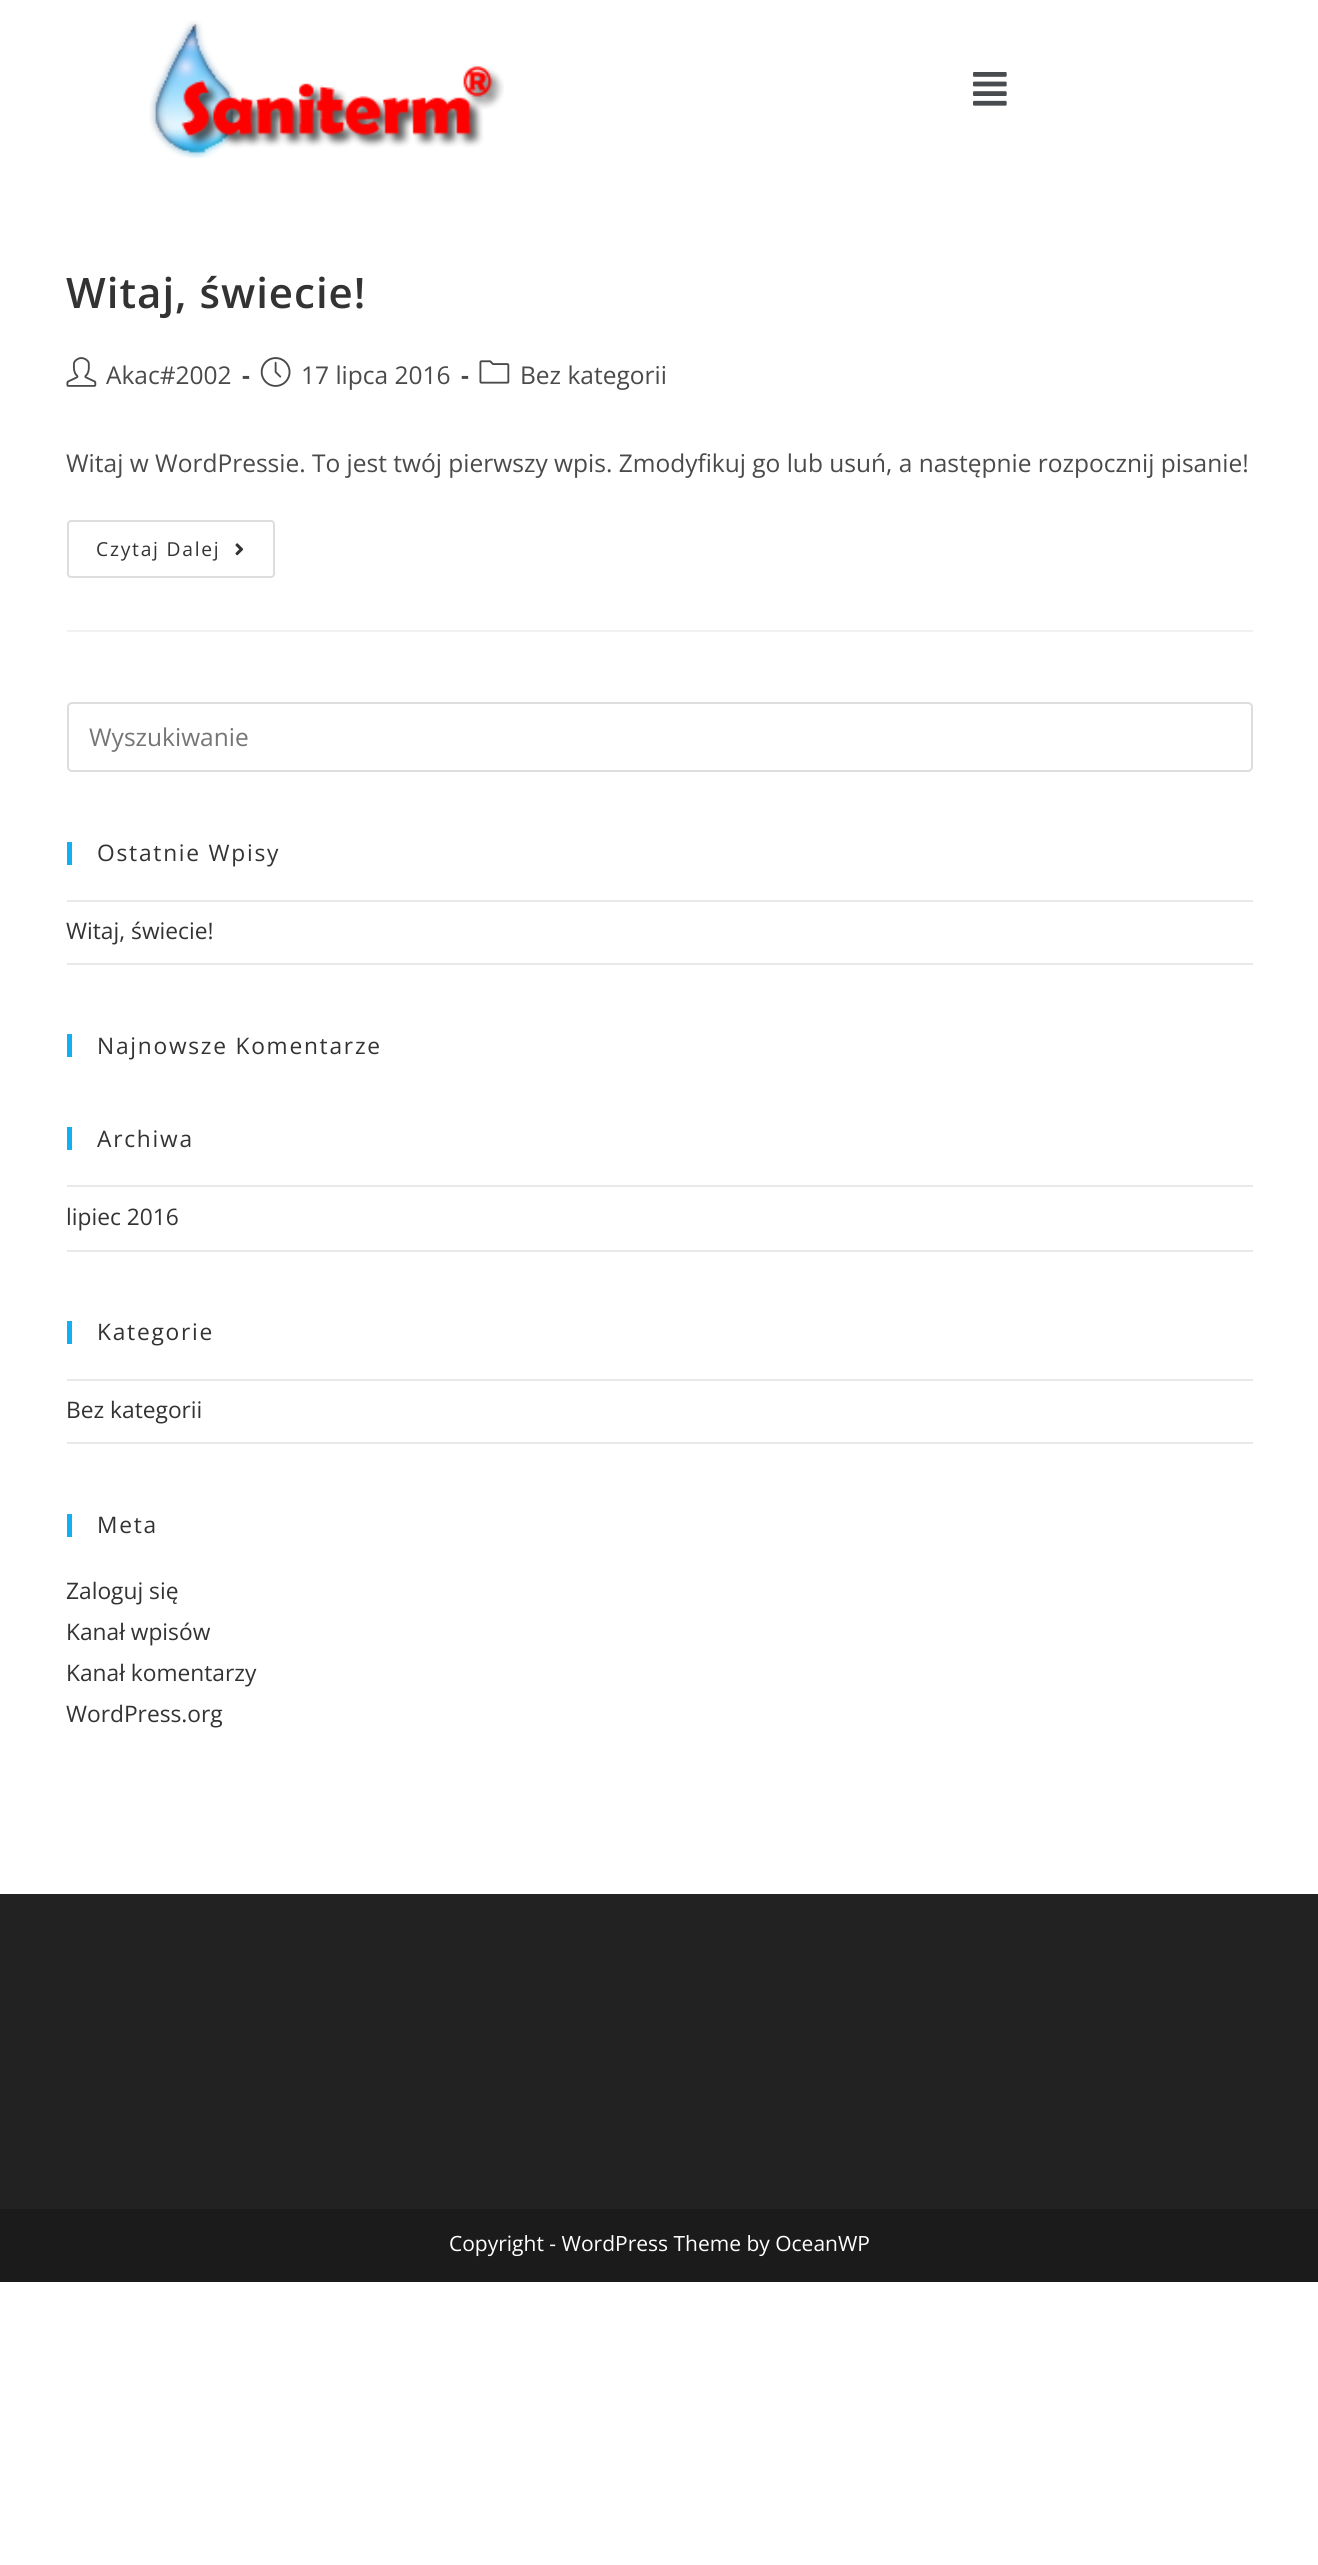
#include <cairo.h>
#include <math.h>
#include <stddef.h>

static cairo_t *c;
static void C(unsigned color){cairo_set_source_rgb(c, (color >> 16) / 255.0, (color >> 8 & 255) / 255.0, (color & 255) / 255.0);}
static void F(const char *family, double size, int italic, int bold){cairo_select_font_face(c, family, italic ? CAIRO_FONT_SLANT_ITALIC : CAIRO_FONT_SLANT_NORMAL,bold ? CAIRO_FONT_WEIGHT_BOLD : CAIRO_FONT_WEIGHT_NORMAL);cairo_set_font_size(c, size);}
static void T(double x, double y, const char *s){cairo_move_to(c, x, y);cairo_show_text(c, s);}
static void L(double x, double y, const char *s, double letter, double word){cairo_move_to(c, x, y);while (*s) {char ch[5] = {0};int n = 0;do ch[n++] = *s++; while ((*s & 0xC0) == 0x80);cairo_show_text(c, ch);cairo_rel_move_to(c, letter + word * (*ch == ' '), 0);}}
static void R(double x, double y, double w, double h){cairo_rectangle(c, x, y, w, h);cairo_fill(c);}
static void Q(double x, double y, double w, double h, double r){cairo_new_sub_path(c);cairo_arc(c, x + w - r, y + h - r, r, 0, M_PI / 2);cairo_arc(c, x + r, y + h - r, r, M_PI / 2, M_PI);cairo_arc(c, x + r, y + r, r, M_PI, 1.5 * M_PI);cairo_arc(c, x + w - r, y + r, r, 1.5 * M_PI, 2 * M_PI);cairo_close_path(c);}
static void I(const char *path, double x, double y, double w, double h){cairo_surface_t *image = cairo_image_surface_create_from_png(path);cairo_save(c);cairo_set_source_surface(c, image, x, y);cairo_rectangle(c, x, y, w, h);cairo_fill(c);cairo_restore(c);cairo_surface_destroy(image);}
int main(void) {
cairo_surface_t *surface = cairo_image_surface_create(CAIRO_FORMAT_RGB24, 1318, 2565);
c = cairo_create(surface);
cairo_font_options_t *options = cairo_font_options_create();
cairo_font_options_set_hint_metrics(options, CAIRO_HINT_METRICS_OFF);
cairo_font_options_set_hint_style(options, CAIRO_HINT_STYLE_NONE);
cairo_set_font_options(c, options);
cairo_set_miter_limit(c, 4);
C(0xffffff);
cairo_paint(c);
I("1.png",149,20,355,138);
I("2.png",973,72,34,34);
C(0xf1f1f1);
R(67,630,1186,2);
F("Open Sans SemiBold",42,0,0);
C(0x333333);
L(66,308,"Witaj, świecie!",1,0);
I("3.png",66,357,31,30);
F("Open Sans",24.5,0,0);
C(0x4a4a4a);
T(106,384,"Akac#2002");
F("Open Sans",24.5,0,1);
T(242,384,"-");
I("4.png",260,357,31,30);
F("Open Sans",24.5,0,0);
T(301,384,"17 lipca 2016");
F("Open Sans",24.5,0,1);
T(461,384,"-");
I("5.png",479,360,31,24);
F("Open Sans",24.5,0,0);
T(520,384,"Bez kategorii");
T(66,472,"Witaj w WordPressie. To jest twój pierwszy wpis. Zmodyfikuj go lub usuń, a następnie rozpocznij pisanie!");
Q(68,521,206,56,3);
C(0xdddddd);
cairo_stroke(c);
F("Open Sans",19.25,0,0);
C(0x333333);
L(96,556,"Czytaj Dalej",1.75,0);
I("6.png",235,543,9,13);
Q(68,703,1184,68,4);
C(0xdddddd);
cairo_stroke(c);
F("Open Sans",24.5,0,0);
C(0x757575);
T(89,746,"Wyszukiwanie");
C(0x13aff0);
R(67,842,5,23);
F("Open Sans",22.75,0,0);
C(0x333333);
L(97,861,"Ostatnie Wpisy",1.75,0);
C(0xe9e9e9);
R(67,900,1186,2);
R(67,963,1186,2);
C(0x333333);
T(66,939,"Witaj, świecie!");
C(0x13aff0);
R(67,1034,5,23);
C(0x333333);
L(97,1054,"Najnowsze Komentarze",1.75,0);
C(0x13aff0);
R(67,1127,5,23);
C(0x333333);
L(97,1147,"Archiwa",1.75,0);
C(0xe9e9e9);
R(67,1185,1186,2);
R(67,1250,1186,2);
C(0x333333);
T(66,1225,"lipiec 2016");
C(0x13aff0);
R(67,1321,5,23);
C(0x333333);
L(97,1340,"Kategorie",1.75,0);
C(0xe9e9e9);
R(67,1379,1186,2);
R(67,1442,1186,2);
C(0x333333);
T(66,1418,"Bez kategorii");
C(0x13aff0);
R(67,1514,5,23);
C(0x333333);
L(97,1533,"Meta",1.75,0);
T(66,1599,"Zaloguj się");
T(66,1640,"Kanał wpisów");
T(66,1681,"Kanał komentarzy");
T(66,1722,"WordPress.org");
C(0x222222);
R(0,1894,1318,315);
C(0x1b1b1b);
R(0,2209,1318,73);
F("Open Sans",21,0,0);
C(0xffffff);
T(449,2251,"Copyright - WordPress Theme by OceanWP");
cairo_surface_write_to_png(surface, "o.png");
cairo_font_options_destroy(options);
cairo_destroy(c);
cairo_surface_destroy(surface);
return 0;
}
